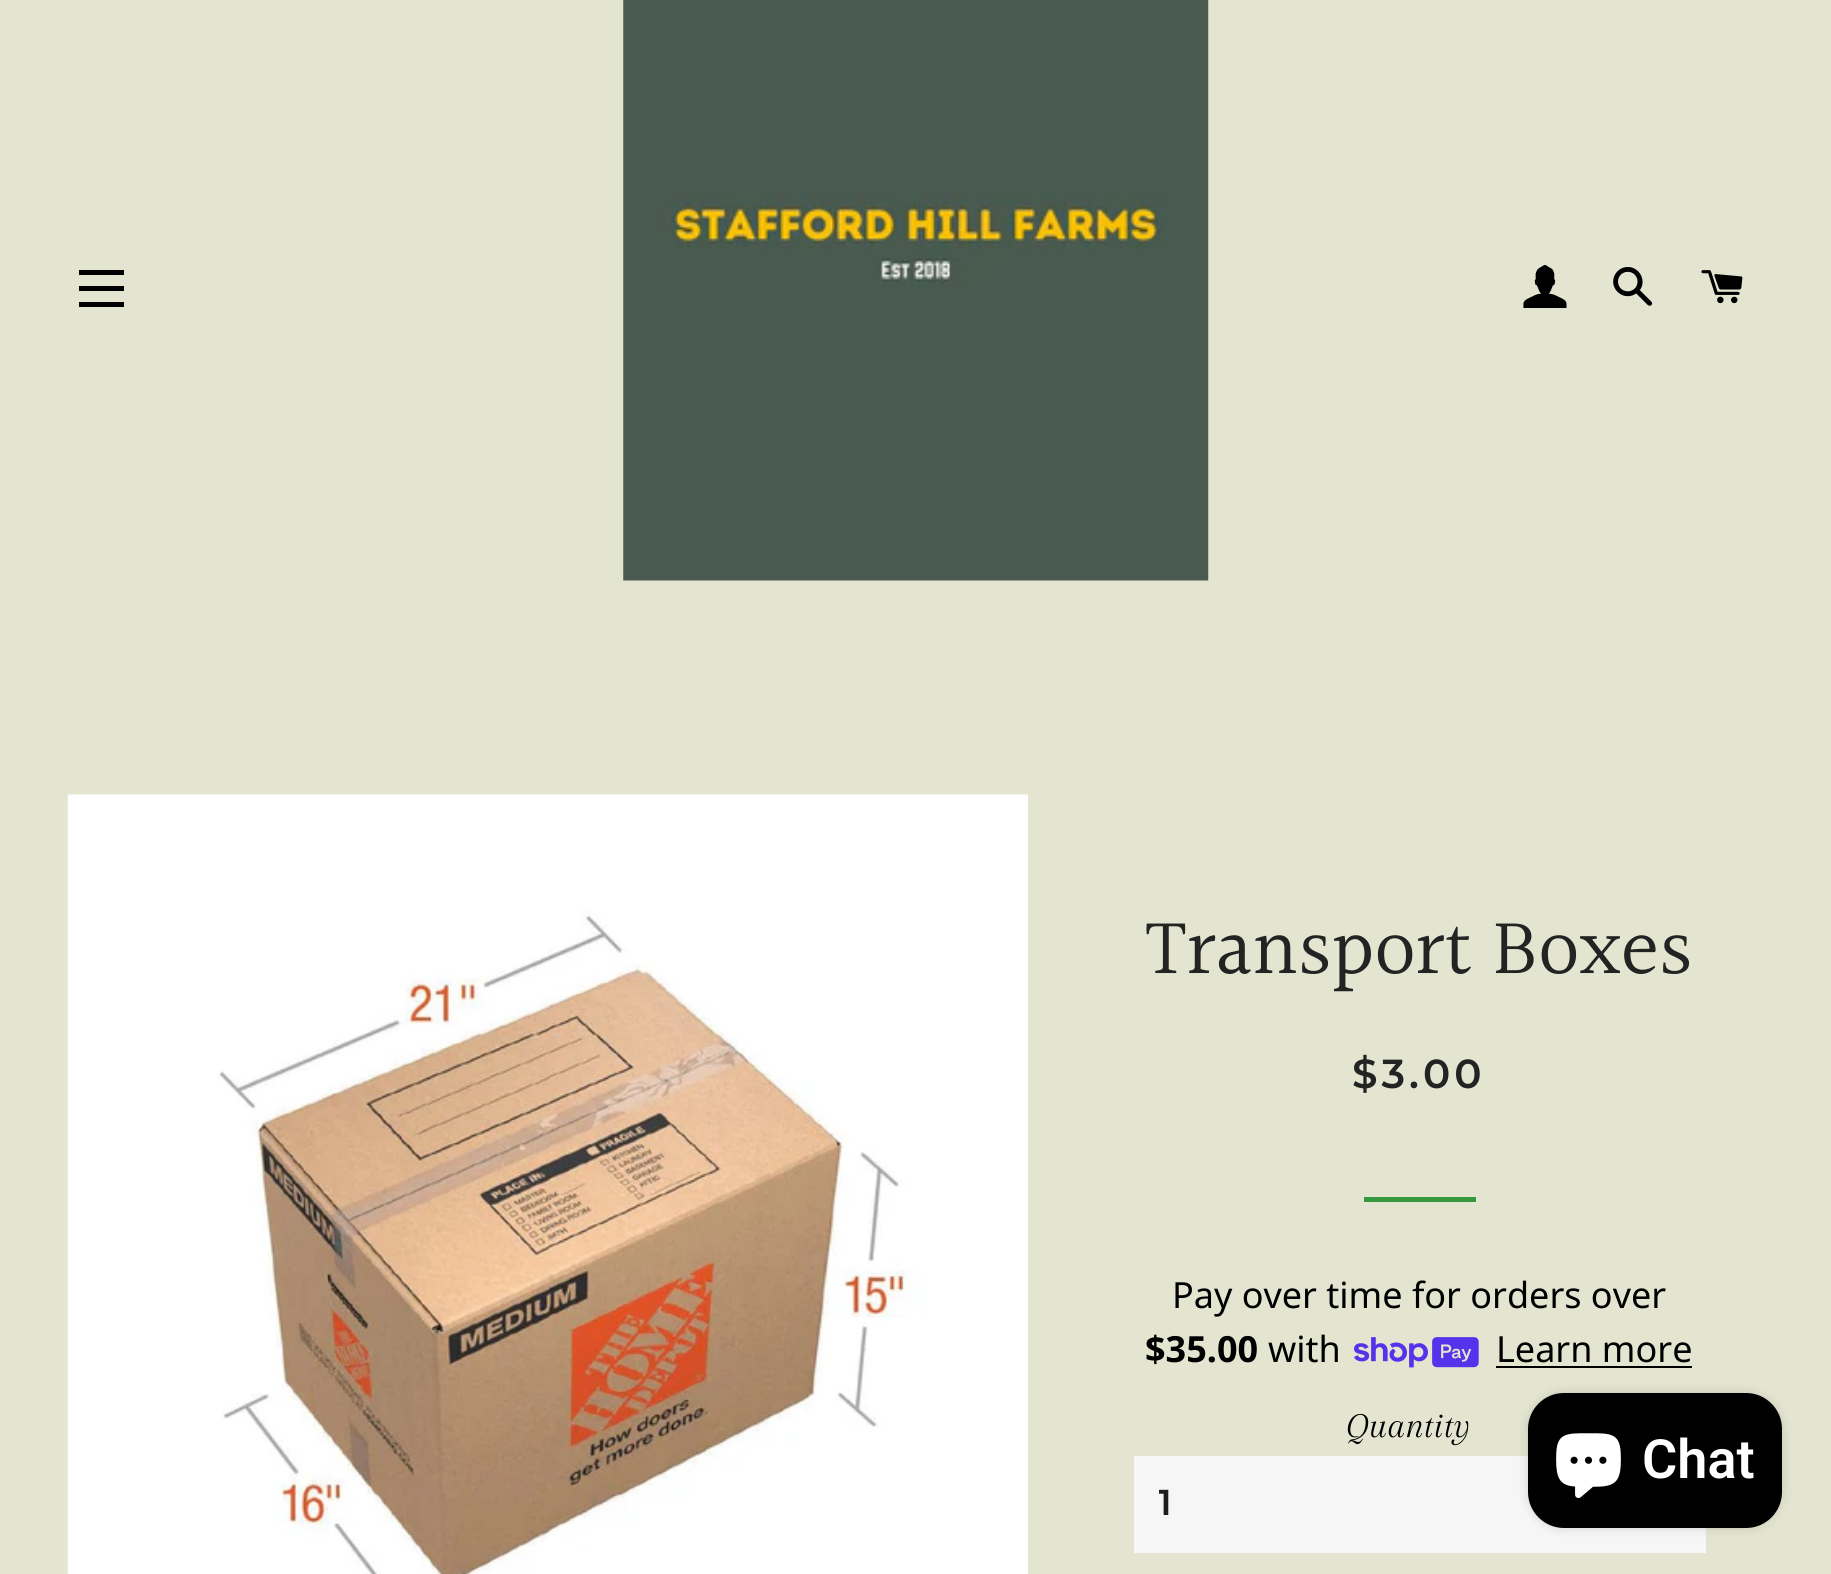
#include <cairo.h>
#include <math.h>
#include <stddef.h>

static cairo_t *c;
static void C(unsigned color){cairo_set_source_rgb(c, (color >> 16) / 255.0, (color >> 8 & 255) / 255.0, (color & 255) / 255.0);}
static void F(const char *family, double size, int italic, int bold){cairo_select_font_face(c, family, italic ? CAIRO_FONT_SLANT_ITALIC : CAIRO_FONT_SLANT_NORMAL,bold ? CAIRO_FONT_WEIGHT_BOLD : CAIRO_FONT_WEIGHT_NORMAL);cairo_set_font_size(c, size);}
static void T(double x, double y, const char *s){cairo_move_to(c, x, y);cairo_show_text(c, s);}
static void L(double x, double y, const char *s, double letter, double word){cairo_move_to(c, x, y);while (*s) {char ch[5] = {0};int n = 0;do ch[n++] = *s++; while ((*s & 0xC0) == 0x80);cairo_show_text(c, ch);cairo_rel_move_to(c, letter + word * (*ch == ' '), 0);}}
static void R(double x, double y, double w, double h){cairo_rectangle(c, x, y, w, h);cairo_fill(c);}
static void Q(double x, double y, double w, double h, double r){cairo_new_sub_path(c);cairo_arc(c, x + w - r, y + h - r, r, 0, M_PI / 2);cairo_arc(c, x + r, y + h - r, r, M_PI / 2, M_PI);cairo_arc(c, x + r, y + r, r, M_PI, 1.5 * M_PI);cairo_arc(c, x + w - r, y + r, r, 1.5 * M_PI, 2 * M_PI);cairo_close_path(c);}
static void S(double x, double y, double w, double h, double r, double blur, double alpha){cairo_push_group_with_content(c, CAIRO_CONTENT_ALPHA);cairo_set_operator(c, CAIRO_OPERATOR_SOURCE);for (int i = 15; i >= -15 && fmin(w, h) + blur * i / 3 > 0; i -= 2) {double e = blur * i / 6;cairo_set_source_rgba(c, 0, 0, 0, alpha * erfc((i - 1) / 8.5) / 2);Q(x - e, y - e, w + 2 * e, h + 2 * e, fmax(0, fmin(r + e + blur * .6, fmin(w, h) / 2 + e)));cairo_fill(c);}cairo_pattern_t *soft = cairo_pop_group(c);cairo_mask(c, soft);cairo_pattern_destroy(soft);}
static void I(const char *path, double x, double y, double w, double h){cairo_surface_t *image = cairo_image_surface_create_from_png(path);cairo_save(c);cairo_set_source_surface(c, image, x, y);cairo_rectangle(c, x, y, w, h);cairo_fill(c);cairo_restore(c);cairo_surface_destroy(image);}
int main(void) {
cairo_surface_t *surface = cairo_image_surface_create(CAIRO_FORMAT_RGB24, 1831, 1574);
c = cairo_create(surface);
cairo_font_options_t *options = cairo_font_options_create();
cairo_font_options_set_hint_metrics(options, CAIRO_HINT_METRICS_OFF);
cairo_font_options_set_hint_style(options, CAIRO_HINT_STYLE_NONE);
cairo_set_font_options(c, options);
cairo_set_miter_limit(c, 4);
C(0xe4e5d1);
cairo_paint(c);
C(0x000000);
R(79,270,45,5);
R(79,286,45,5);
R(79,302,45,5);
I("1.png",623,0,586,581);
I("2.png",1523,264,44,44);
I("3.png",1613,267,40,39);
I("4.png",1701,270,42,34);
I("5.png",67,794,961,780);
F("Halant",81,0,0);
C(0x222323);
T(1145,977,"Transport Boxes");
F("Montserrat SemiBold",40.5,0,0);
L(1352,1088,"$3.00",4,0);
C(0x35983c);
R(1364,1197,112,5);
F("Noto Sans",36,0,0);
C(0x000000);
T(1172,1308,"Pay over time for orders over");
F("Noto Sans",36,0,1);
T(1145,1362,"$35.00");
F("Noto Sans",36,0,0);
T(1268,1362,"with");
I("6.png",1354,1337,125,31);
T(1496,1362,"Learn more");
R(1496,1366,196,2);
F("Arapey",36,1,0);
T(1346,1437,"Quantity");
C(0xf6f6f6);
R(1134,1456,572,97);
cairo_save(c);
cairo_rectangle(c,1159,1476,488,56);
cairo_clip(c);
F("Montserrat SemiBold",36,0,0);
C(0x1c1d1d);
L(1158,1515,"1",4,0);
cairo_restore(c);
C(0x000000);
S(1528,1393,254,135,36,5.5,.15);
C(0x000000);
Q(1528,1393,254,135,36);
cairo_fill(c);
I("7.png",1556,1433,65,65);
F("Roboto SemiBold",54,0,0);
C(0xffffff);
T(1642,1478,"Chat");
cairo_surface_write_to_png(surface, "o.png");
cairo_font_options_destroy(options);
cairo_destroy(c);
cairo_surface_destroy(surface);
return 0;
}
